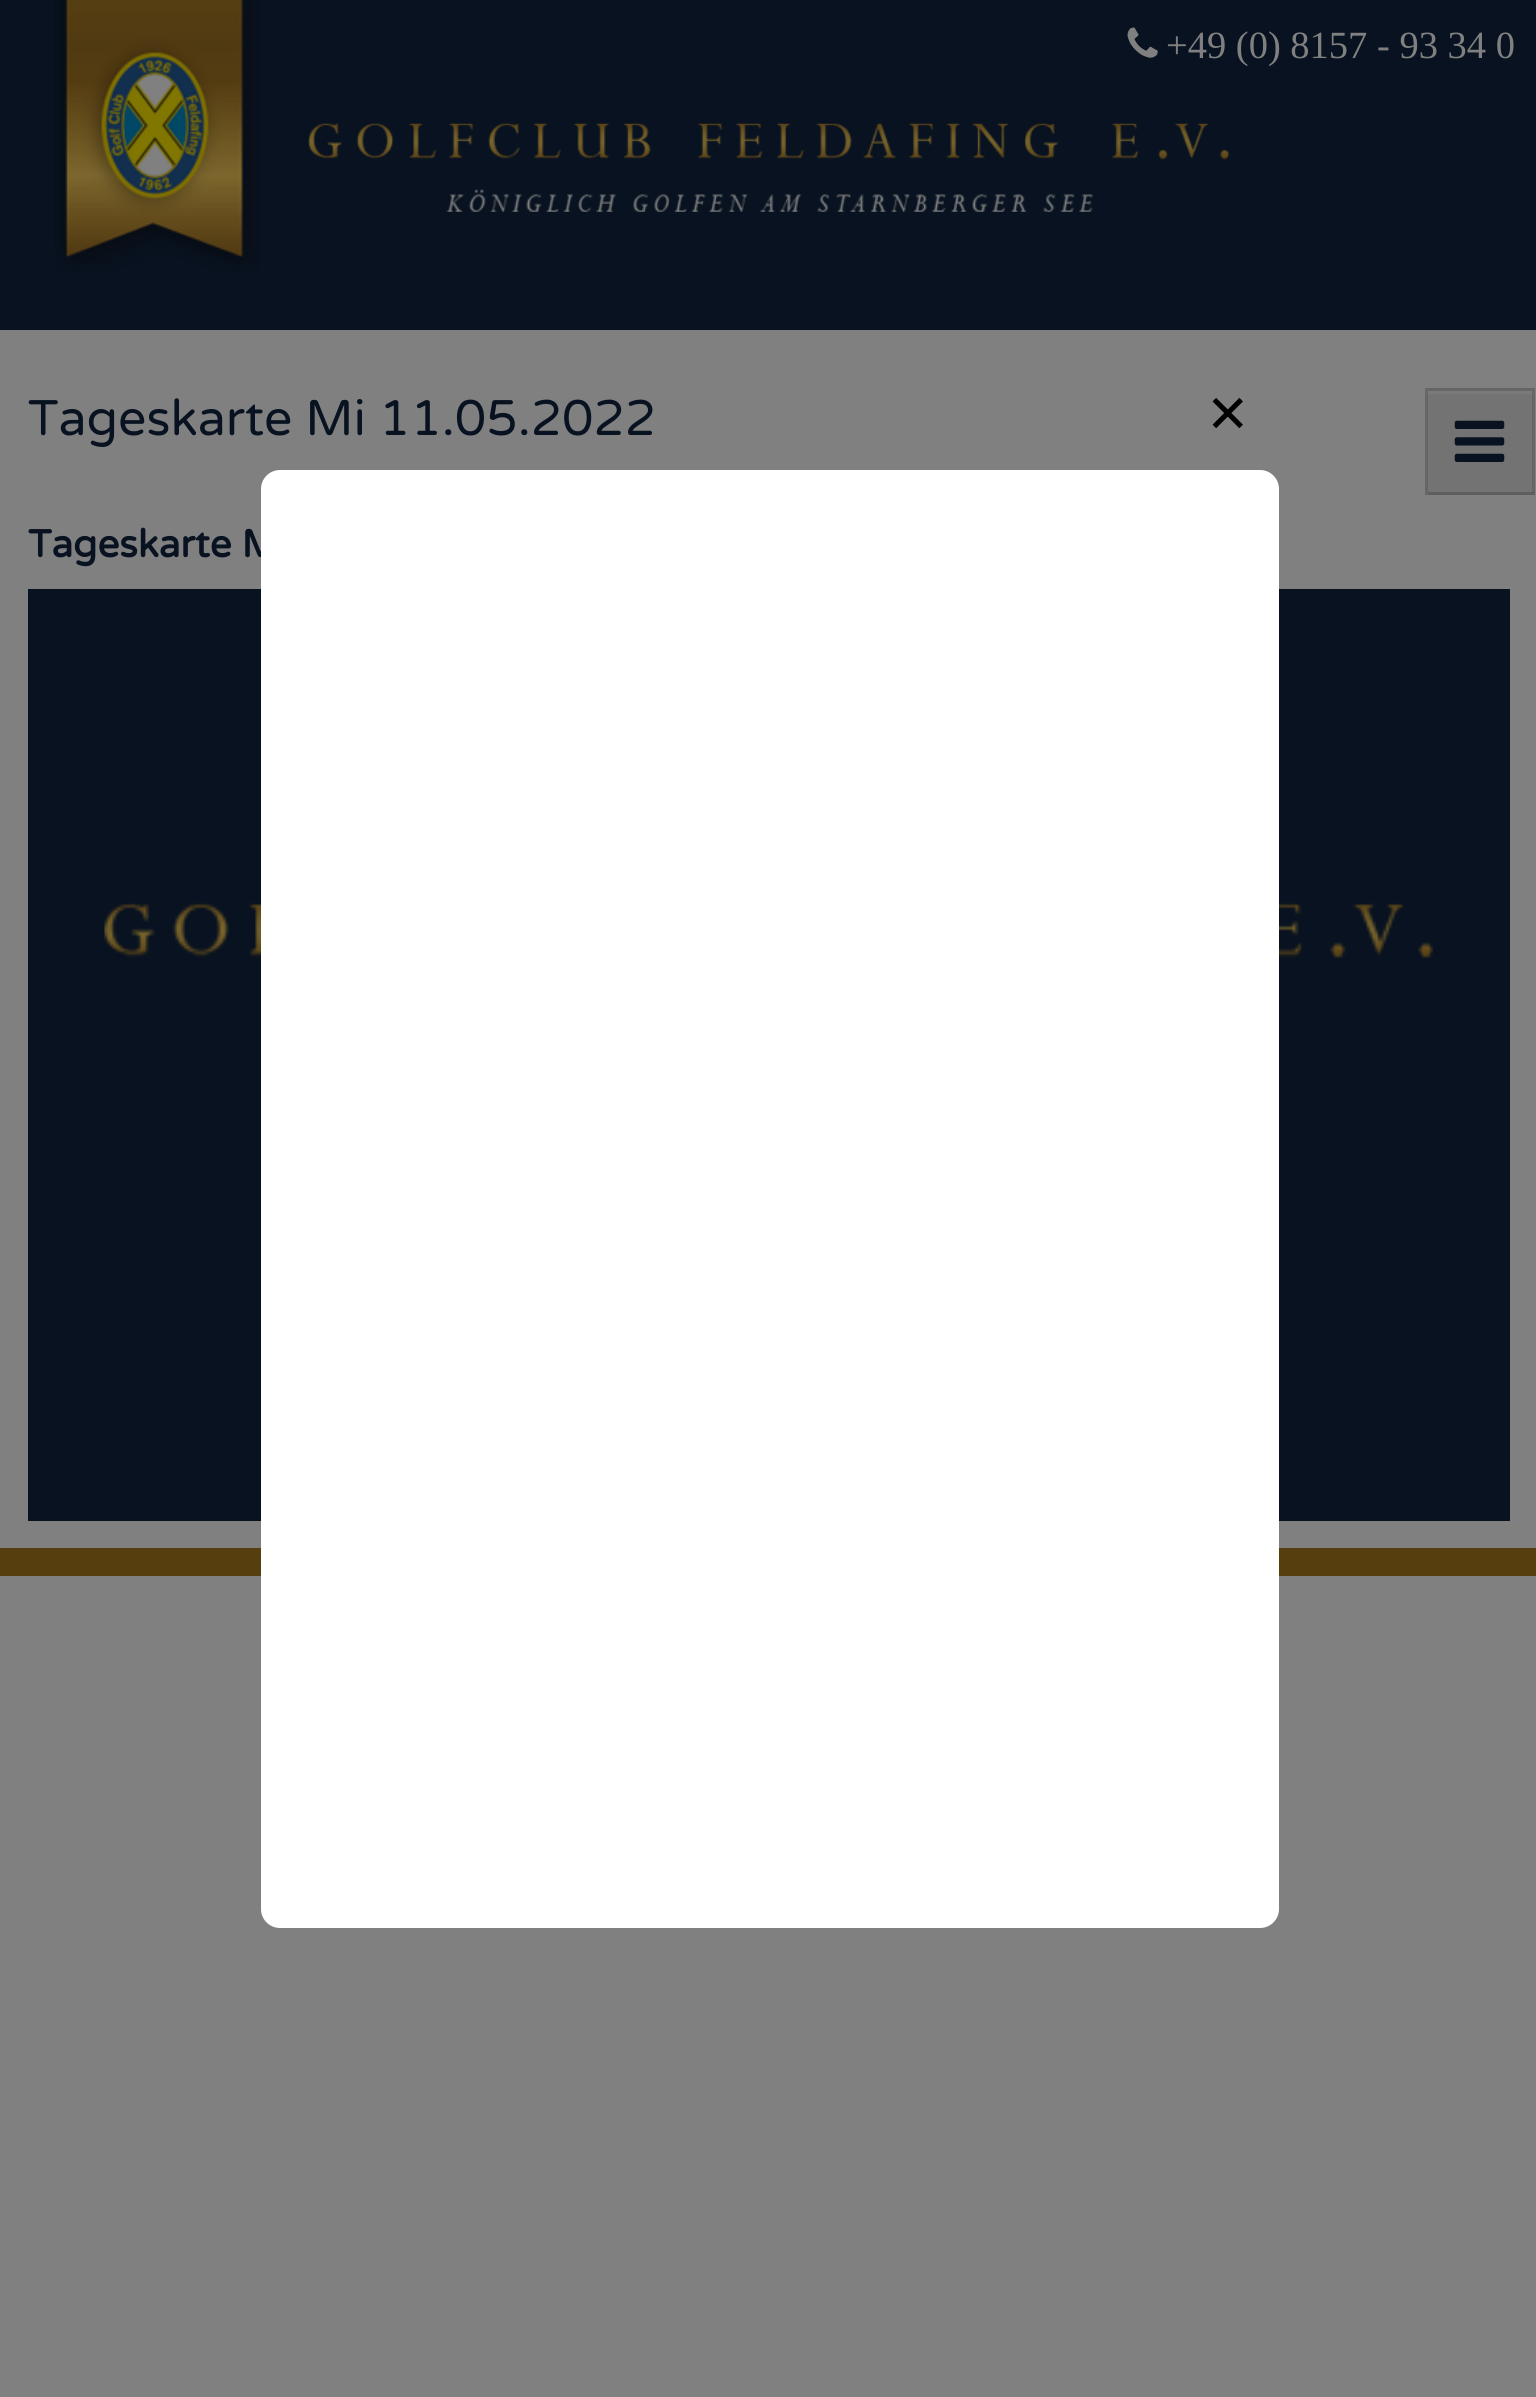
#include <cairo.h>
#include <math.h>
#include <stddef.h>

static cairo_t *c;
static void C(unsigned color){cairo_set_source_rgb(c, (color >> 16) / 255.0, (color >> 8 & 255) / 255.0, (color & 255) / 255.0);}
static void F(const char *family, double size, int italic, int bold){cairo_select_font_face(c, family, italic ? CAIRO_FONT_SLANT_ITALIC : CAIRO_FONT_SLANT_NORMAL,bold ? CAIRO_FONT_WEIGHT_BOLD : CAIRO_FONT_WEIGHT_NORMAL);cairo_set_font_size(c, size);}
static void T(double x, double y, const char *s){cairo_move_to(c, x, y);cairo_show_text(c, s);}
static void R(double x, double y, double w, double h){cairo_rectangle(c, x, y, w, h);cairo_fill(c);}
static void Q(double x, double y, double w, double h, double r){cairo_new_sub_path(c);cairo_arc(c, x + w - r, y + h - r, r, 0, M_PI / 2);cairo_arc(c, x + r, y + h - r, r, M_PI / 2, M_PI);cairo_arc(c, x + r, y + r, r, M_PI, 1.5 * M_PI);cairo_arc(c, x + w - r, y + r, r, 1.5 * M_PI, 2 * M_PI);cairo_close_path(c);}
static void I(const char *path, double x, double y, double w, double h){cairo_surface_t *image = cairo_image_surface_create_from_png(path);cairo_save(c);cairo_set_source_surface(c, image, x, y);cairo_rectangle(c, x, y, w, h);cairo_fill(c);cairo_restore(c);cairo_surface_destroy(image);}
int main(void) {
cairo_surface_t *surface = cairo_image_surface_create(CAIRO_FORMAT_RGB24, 1536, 2397);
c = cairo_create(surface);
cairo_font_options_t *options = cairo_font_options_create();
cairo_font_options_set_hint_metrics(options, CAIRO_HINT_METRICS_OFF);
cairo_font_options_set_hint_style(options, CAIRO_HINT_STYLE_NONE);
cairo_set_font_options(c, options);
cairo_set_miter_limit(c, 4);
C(0x808080);
cairo_paint(c);
C(0x081220);
R(0,0,1536,330);
I("1.png",54,0,206,272);
I("2.png",1127,27,31,31);
F("Liberation Serif",38.5,0,0);
C(0x808080);
T(1166,58,"+49 (0) 8157 - 93 34 0");
I("3.png",308,123,922,89);
F("Varela Round",50,0,0);
C(0x081220);
T(28,435,"Tageskarte Mi 11.05.2022");
F("Varela Round",38.5,0,1);
T(28,557,"Tageskarte M");
C(0x737373);
R(1428,394,104,98);
C(0x7a7a7a);
R(1427,391,105,3);
C(0x666666);
R(1425,388,110,3);
R(1532,388,3,107);
C(0x5e5e5e);
R(1425,492,110,3);
C(0x666666);
R(1425,388,3,107);
I("4.png",1454,420,51,42);
C(0x081220);
R(28,589,1482,932);
I("5.png",104,902,1329,56);
C(0x573e0f);
R(0,1548,1536,28);
C(0xffffff);
Q(262.5,471.5,1015,1455,17.5);
cairo_fill_preserve(c);
cairo_set_line_width(c,3);
cairo_stroke(c);
F("DejaVu Sans",52,0,0);
C(0x000000);
T(1206,432,"✕");
cairo_surface_write_to_png(surface, "o.png");
cairo_font_options_destroy(options);
cairo_destroy(c);
cairo_surface_destroy(surface);
return 0;
}
